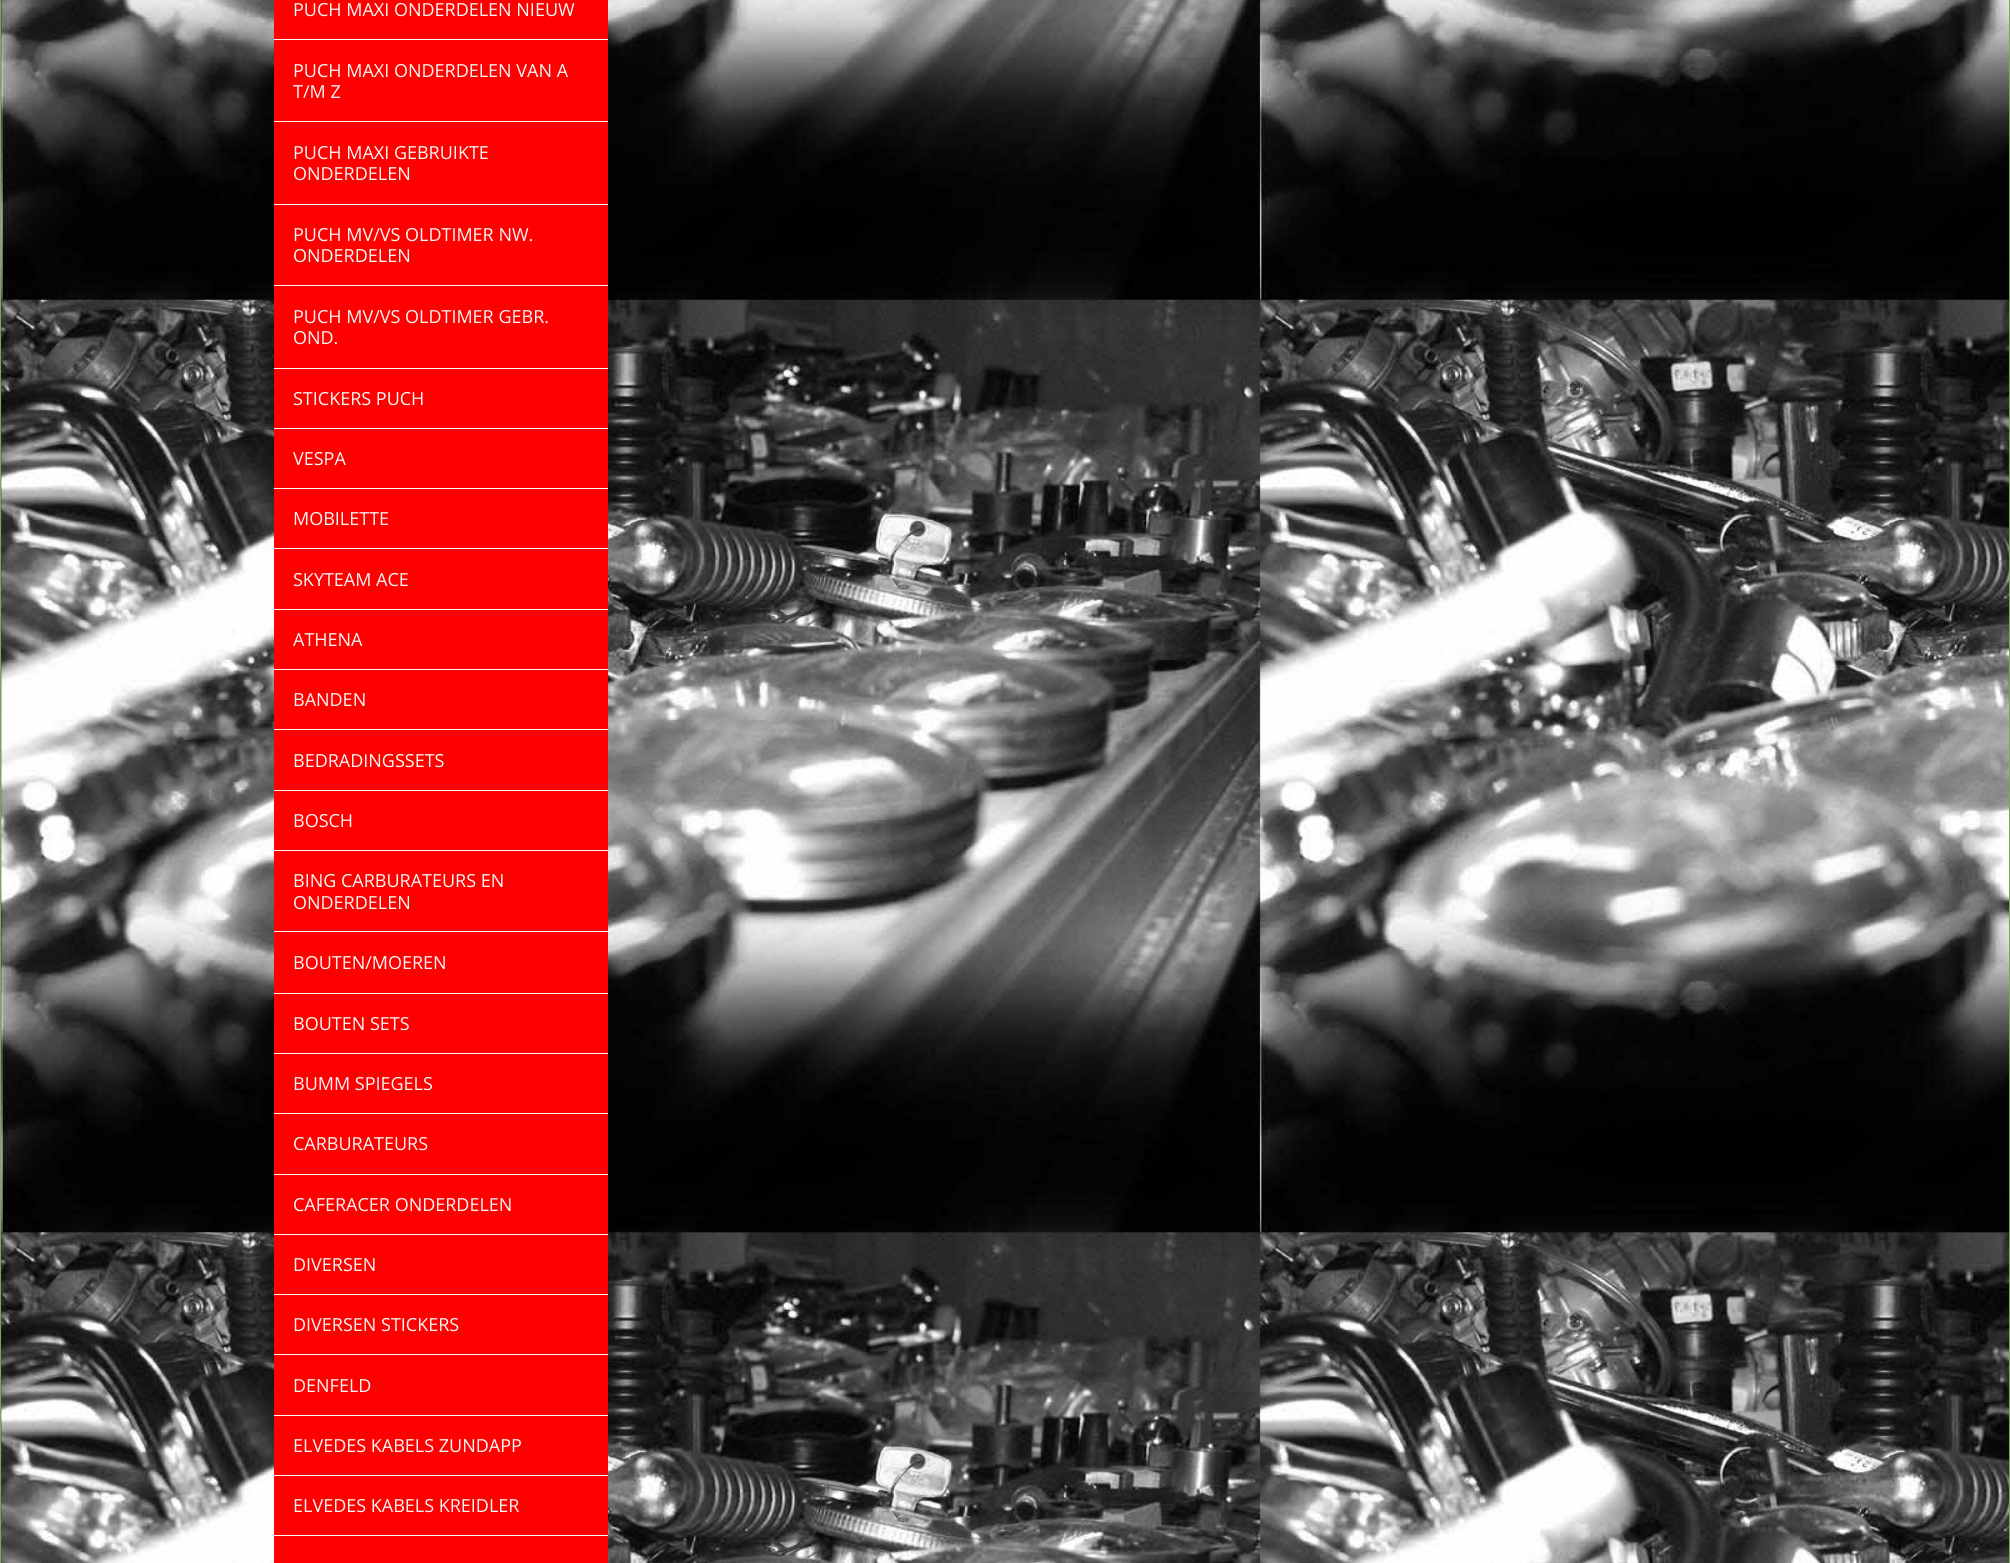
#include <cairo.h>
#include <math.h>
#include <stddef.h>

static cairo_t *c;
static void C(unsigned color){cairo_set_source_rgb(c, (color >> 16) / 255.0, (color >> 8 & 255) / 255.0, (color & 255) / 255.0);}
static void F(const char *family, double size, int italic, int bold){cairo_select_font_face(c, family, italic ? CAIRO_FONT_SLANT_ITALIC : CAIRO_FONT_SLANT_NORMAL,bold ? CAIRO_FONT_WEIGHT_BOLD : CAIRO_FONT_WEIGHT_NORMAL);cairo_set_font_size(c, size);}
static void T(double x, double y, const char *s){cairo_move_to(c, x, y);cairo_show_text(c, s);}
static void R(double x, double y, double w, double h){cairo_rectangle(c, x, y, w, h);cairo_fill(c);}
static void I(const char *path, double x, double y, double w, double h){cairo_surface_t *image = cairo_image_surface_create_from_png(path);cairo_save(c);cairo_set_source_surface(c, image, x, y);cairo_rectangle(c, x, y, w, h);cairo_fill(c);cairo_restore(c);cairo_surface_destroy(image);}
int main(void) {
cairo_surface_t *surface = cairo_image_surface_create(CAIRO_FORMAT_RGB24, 2010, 1563);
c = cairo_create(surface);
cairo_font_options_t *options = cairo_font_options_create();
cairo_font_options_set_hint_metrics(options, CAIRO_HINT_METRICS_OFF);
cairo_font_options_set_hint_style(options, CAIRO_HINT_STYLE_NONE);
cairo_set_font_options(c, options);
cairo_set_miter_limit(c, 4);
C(0xffffff);
cairo_paint(c);
I("1.png",1,0,2008,1563);
cairo_rectangle(c,.5,-.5,2009,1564);
C(0x79aa48);
cairo_set_line_width(c,1);
cairo_stroke(c);
C(0xff0000);
R(274,0,334,1563);
C(0xf7f7f7);
R(274,39,334,1);
F("Open Sans",18,0,0);
T(293,16,"PUCH MAXI ONDERDELEN NIEUW");
R(274,121,334,1);
T(293,77,"PUCH MAXI ONDERDELEN VAN A");
T(293,98,"T/M Z");
R(274,204,334,1);
T(293,159,"PUCH MAXI GEBRUIKTE");
T(293,180,"ONDERDELEN");
R(274,285,334,1);
T(293,241,"PUCH MV/VS OLDTIMER NW.");
T(293,262,"ONDERDELEN");
R(274,368,334,1);
T(293,323,"PUCH MV/VS OLDTIMER GEBR.");
T(293,344,"OND.");
R(274,428,334,1);
T(293,405,"STICKERS PUCH");
R(274,488,334,1);
T(293,465,"VESPA");
R(274,548,334,1);
T(293,525,"MOBILETTE");
R(274,609,334,1);
T(293,586,"SKYTEAM ACE");
R(274,669,334,1);
T(293,646,"ATHENA");
R(274,729,334,1);
T(293,706,"BANDEN");
R(274,790,334,1);
T(293,767,"BEDRADINGSSETS");
R(274,850,334,1);
T(293,827,"BOSCH");
R(274,931,334,1);
T(293,887,"BING CARBURATEURS EN");
T(293,909,"ONDERDELEN");
R(274,993,334,1);
T(293,969,"BOUTEN/MOEREN");
R(274,1053,334,1);
T(293,1030,"BOUTEN SETS");
R(274,1113,334,1);
T(293,1090,"BUMM SPIEGELS");
R(274,1174,334,1);
T(293,1150,"CARBURATEURS");
R(274,1234,334,1);
T(293,1211,"CAFERACER ONDERDELEN");
R(274,1294,334,1);
T(293,1271,"DIVERSEN");
R(274,1354,334,1);
T(293,1331,"DIVERSEN STICKERS");
R(274,1415,334,1);
T(293,1392,"DENFELD");
R(274,1475,334,1);
T(293,1452,"ELVEDES KABELS ZUNDAPP");
R(274,1535,334,1);
T(293,1512,"ELVEDES KABELS KREIDLER");
cairo_surface_write_to_png(surface, "o.png");
cairo_font_options_destroy(options);
cairo_destroy(c);
cairo_surface_destroy(surface);
return 0;
}
